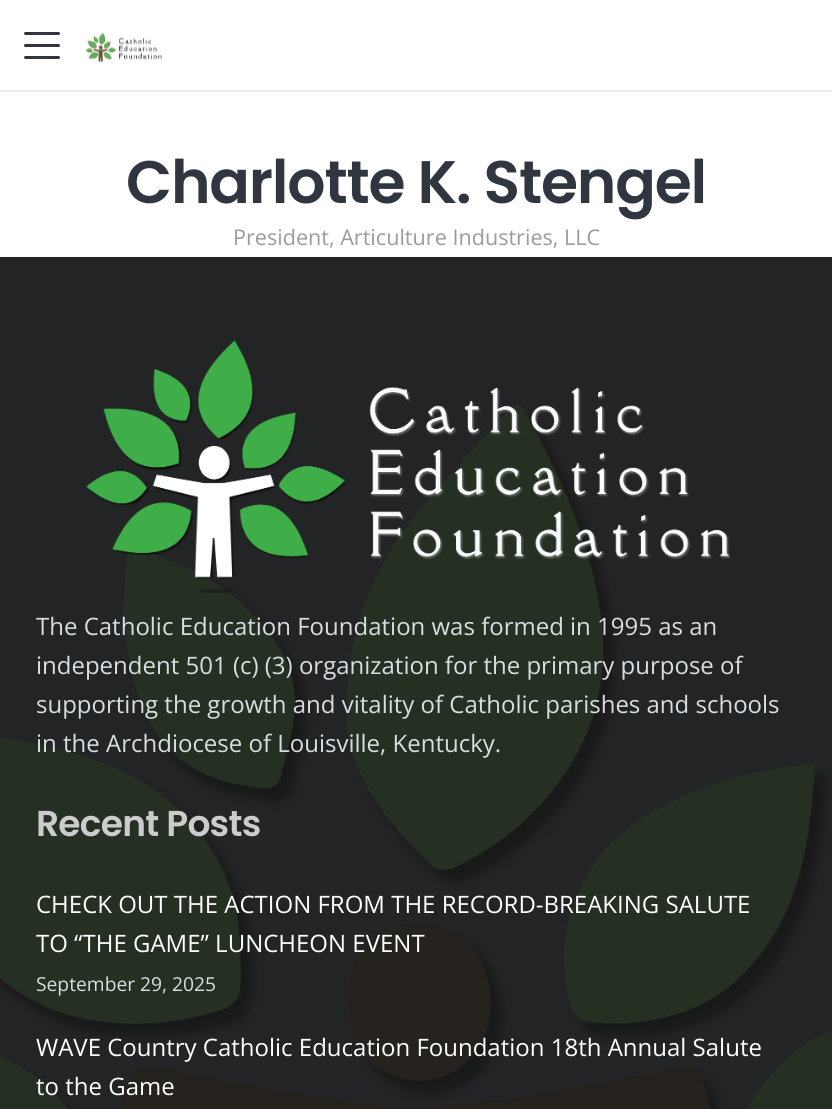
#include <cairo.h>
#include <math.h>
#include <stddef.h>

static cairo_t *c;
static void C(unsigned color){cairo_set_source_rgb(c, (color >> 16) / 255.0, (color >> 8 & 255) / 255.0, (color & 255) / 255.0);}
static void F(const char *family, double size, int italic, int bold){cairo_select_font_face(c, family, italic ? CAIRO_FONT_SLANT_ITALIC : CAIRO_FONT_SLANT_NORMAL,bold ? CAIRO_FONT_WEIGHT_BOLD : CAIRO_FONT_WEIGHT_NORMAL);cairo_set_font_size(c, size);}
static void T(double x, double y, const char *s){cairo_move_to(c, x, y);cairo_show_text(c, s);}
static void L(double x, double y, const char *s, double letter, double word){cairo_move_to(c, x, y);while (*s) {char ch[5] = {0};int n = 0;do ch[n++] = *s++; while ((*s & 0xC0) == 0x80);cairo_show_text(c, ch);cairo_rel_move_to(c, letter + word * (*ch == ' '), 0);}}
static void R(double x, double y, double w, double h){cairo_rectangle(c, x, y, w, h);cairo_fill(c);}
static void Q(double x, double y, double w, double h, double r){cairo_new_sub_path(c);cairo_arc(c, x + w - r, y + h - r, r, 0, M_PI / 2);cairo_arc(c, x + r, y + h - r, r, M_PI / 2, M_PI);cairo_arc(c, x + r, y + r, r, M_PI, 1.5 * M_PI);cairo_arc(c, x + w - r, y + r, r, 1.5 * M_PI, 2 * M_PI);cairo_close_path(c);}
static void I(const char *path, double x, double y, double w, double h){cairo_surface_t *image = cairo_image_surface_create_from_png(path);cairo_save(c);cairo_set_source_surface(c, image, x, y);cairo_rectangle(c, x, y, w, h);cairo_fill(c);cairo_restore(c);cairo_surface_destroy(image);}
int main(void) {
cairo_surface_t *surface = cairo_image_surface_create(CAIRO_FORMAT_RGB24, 832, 1109);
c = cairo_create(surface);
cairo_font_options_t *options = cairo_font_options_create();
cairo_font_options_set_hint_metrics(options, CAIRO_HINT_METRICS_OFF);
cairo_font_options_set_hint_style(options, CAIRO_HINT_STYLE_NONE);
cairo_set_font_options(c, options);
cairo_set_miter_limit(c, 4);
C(0xffffff);
cairo_paint(c);
C(0xebebeb);
cairo_new_path(c);
cairo_move_to(c,0,90);
cairo_line_to(c,0,92);
cairo_line_to(c,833,92);
cairo_line_to(c,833,2);
cairo_line_to(c,832,2);
cairo_line_to(c,832,90);
cairo_close_path(c);
cairo_fill(c);
C(0x303640);
Q(24,44,36,3,1.5);
cairo_fill(c);
Q(24,32,36,3,1.5);
cairo_fill(c);
Q(24,56,36,3,1.5);
cairo_fill(c);
I("1.png",85,32,77,32);
F("Poppins SemiBold",60,0,0);
L(126,203,"Charlotte K. Stengel",-1.2,0);
F("Open Sans",21.6,0,0);
C(0x989ba0);
T(233,245,"President, Articulture Industries, LLC");
C(0x232425);
R(0,257,832,852);
I("2.png",0,404,832,705);
I("3.png",86,340,645,254);
F("Open Sans",24,0,0);
C(0xd7dde0);
T(36,635,"The Catholic Education Foundation was formed in 1995 as an");
T(36,674,"independent 501 (c) (3) organization for the primary purpose of");
T(36,713,"supporting the growth and vitality of Catholic parishes and schools");
T(36,752,"in the Archdiocese of Louisville, Kentucky.");
F("Poppins SemiBold",36,0,0);
C(0xcccccc);
L(36,836,"Recent Posts",-.75,0);
F("Open Sans",24,0,0);
C(0xffffff);
T(36,913,"CHECK OUT THE ACTION FROM THE RECORD-BREAKING SALUTE");
T(36,952,"TO “THE GAME” LUNCHEON EVENT");
F("Open Sans",19.25,0,0);
C(0xd7dde0);
T(36,991,"September 29, 2025");
F("Open Sans",24,0,0);
C(0xffffff);
T(36,1056,"WAVE Country Catholic Education Foundation 18th Annual Salute");
T(36,1095,"to the Game");
cairo_surface_write_to_png(surface, "o.png");
cairo_font_options_destroy(options);
cairo_destroy(c);
cairo_surface_destroy(surface);
return 0;
}
